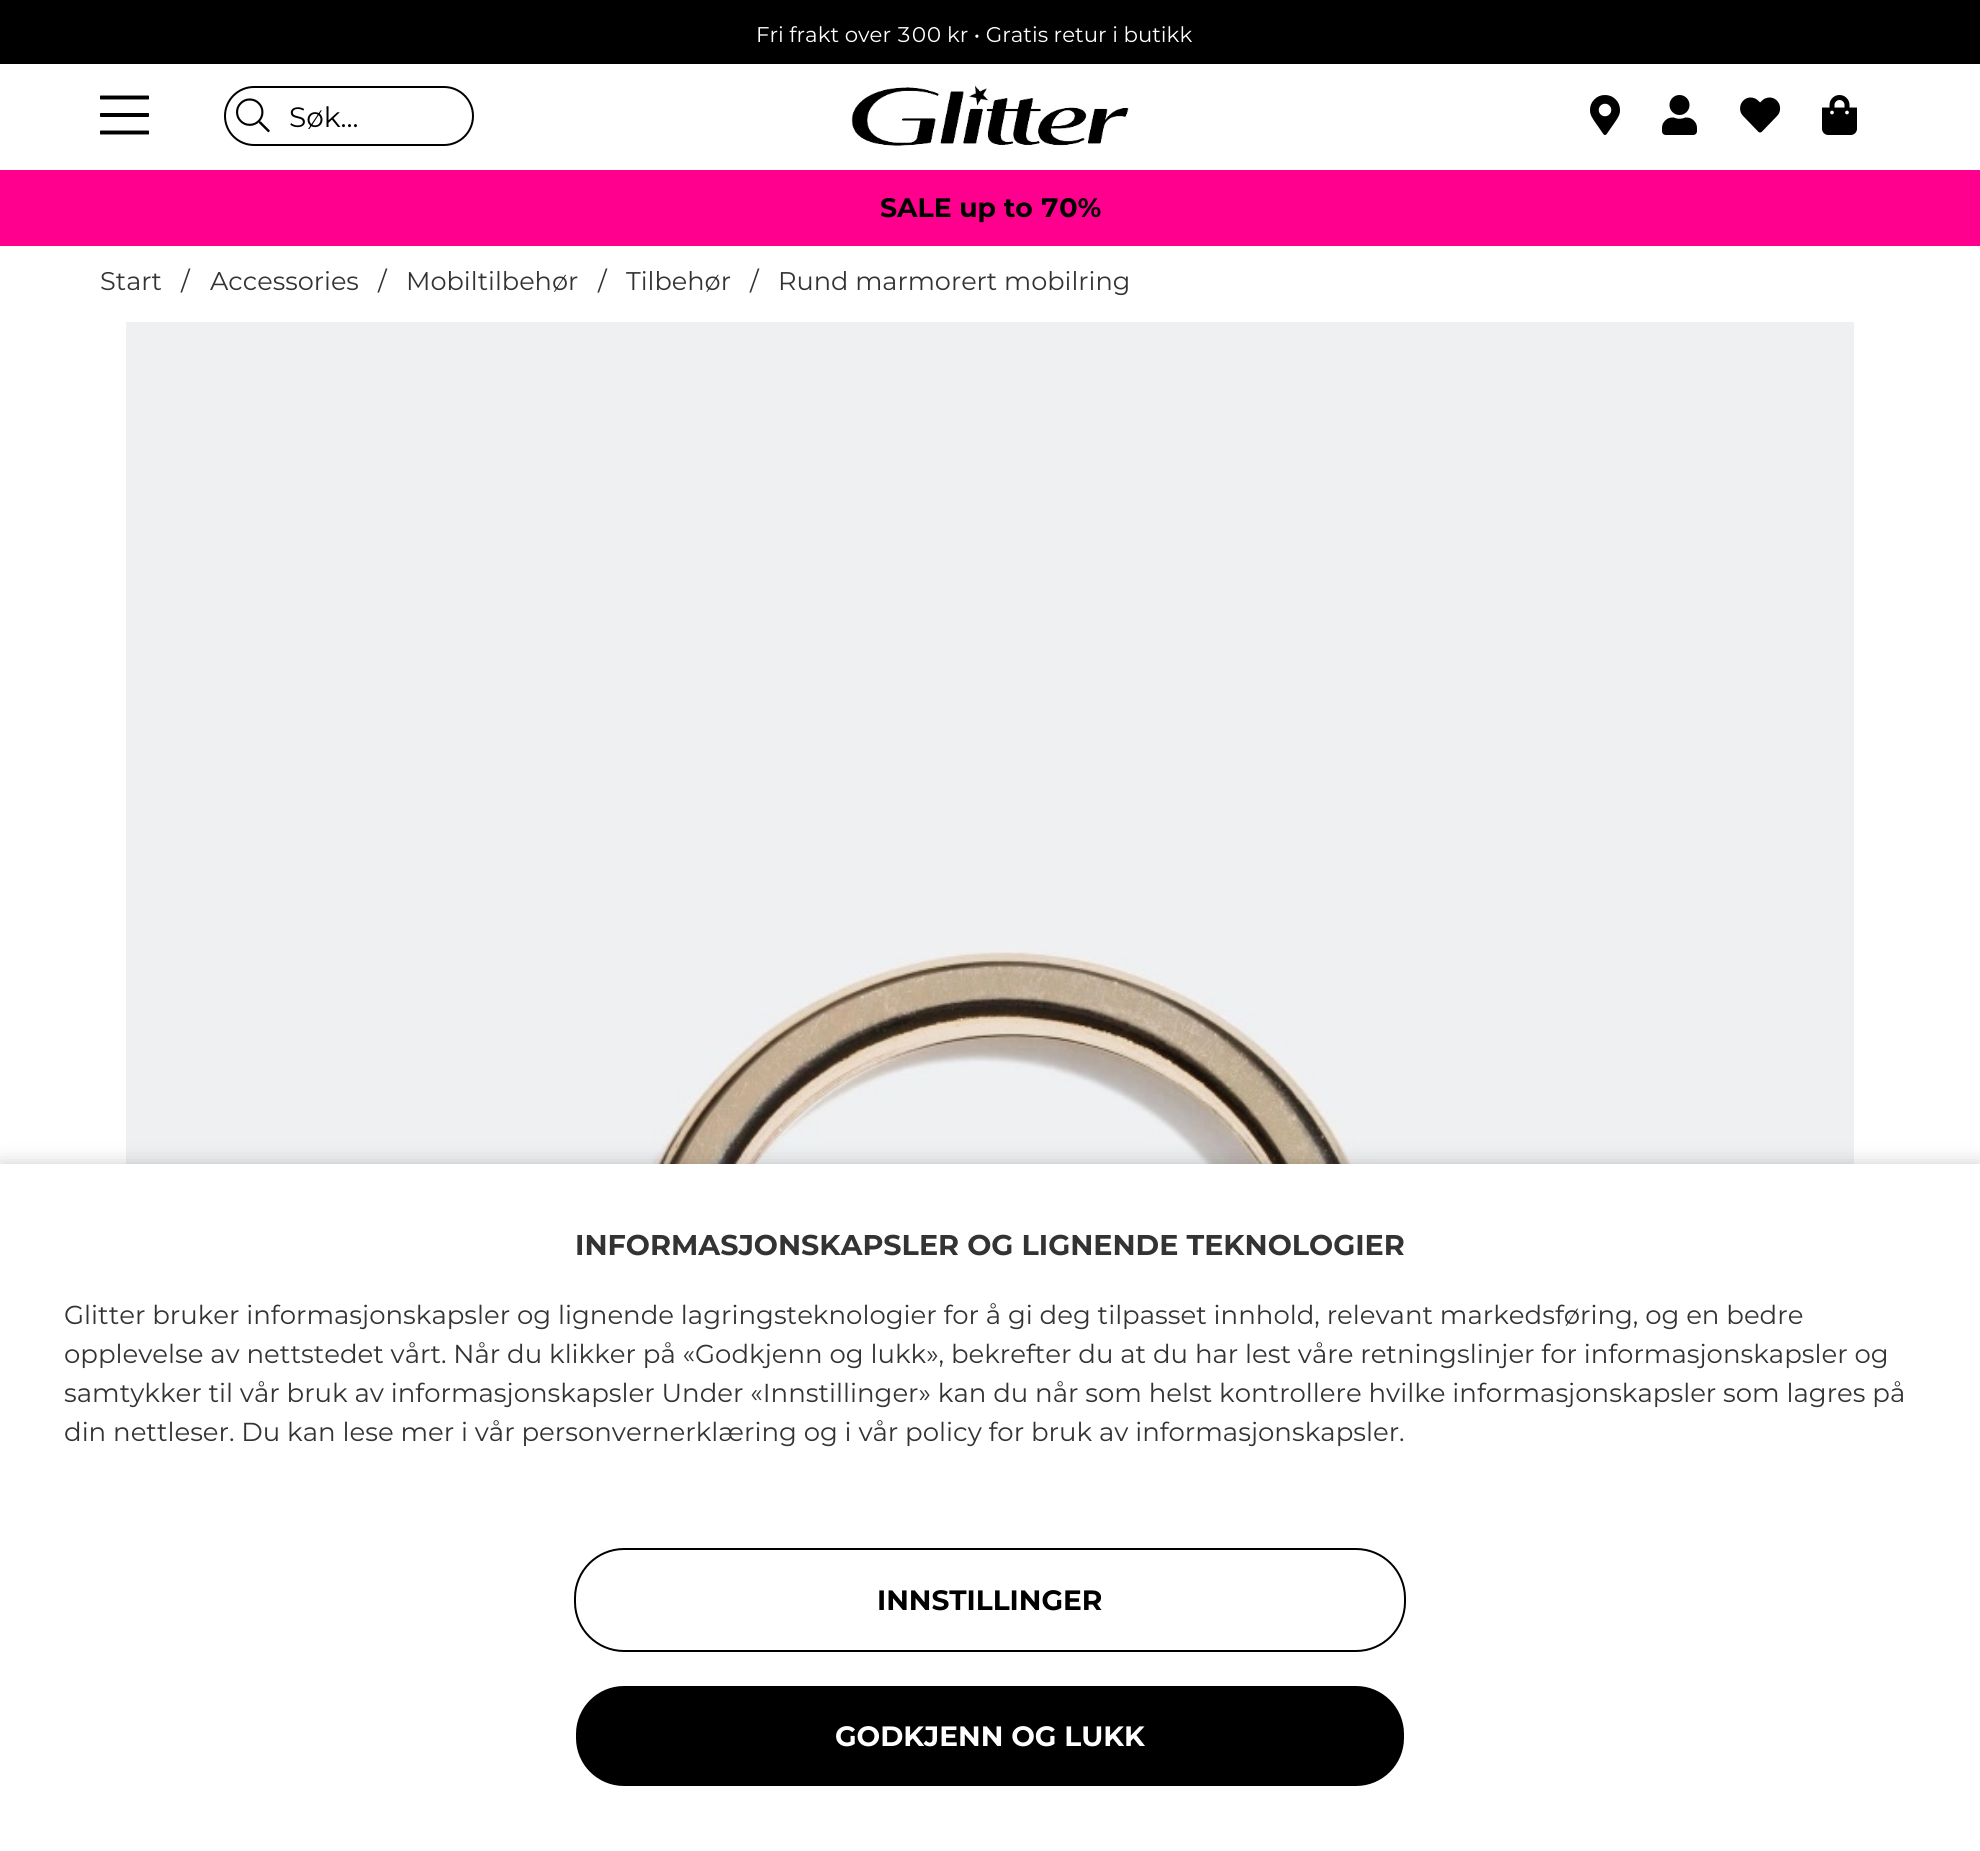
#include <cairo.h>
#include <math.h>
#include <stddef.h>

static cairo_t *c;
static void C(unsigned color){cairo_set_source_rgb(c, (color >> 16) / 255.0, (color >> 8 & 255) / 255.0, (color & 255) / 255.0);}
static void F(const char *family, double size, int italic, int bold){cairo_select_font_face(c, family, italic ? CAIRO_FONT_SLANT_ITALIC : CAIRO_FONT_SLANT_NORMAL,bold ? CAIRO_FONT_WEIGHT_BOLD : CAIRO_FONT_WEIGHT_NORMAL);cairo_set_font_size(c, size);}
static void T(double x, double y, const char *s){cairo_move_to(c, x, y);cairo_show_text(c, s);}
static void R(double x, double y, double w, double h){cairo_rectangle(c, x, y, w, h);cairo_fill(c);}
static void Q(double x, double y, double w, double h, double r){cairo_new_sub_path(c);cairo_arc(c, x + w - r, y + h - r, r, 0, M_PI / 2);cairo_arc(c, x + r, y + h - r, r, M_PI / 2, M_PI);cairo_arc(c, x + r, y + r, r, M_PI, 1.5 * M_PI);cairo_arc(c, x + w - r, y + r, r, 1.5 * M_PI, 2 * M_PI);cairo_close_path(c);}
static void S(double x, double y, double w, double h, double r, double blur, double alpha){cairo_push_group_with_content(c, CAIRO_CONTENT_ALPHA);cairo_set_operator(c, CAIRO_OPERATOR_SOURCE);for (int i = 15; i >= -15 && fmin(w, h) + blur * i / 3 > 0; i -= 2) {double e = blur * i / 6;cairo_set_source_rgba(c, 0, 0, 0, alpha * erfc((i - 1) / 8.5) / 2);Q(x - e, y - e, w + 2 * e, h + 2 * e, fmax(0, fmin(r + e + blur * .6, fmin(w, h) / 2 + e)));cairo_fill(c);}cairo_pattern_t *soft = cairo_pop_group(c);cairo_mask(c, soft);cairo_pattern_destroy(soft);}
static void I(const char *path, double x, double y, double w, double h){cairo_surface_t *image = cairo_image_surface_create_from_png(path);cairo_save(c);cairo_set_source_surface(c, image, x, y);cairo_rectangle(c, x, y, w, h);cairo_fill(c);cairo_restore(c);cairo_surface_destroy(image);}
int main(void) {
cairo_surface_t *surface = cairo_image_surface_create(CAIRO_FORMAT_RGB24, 1980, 1851);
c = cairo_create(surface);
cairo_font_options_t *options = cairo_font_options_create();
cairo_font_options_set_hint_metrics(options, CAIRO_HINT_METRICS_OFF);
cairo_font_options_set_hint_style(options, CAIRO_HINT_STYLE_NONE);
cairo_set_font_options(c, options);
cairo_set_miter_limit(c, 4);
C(0xffffff);
cairo_paint(c);
C(0x000000);
R(0,0,1980,64);
F("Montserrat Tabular",21.3,0,0);
C(0xffffff);
T(756,42,"Fri frakt over 300 kr • Gratis retur i butikk");
I("1.png",100,95,49,40);
Q(225,87,248,58,29);
C(0x000000);
cairo_stroke(c);
I("2.png",236,98,34,35);
F("Montserrat",28,0,0);
T(289,127,"Søk...");
I("3.png",851,85,278,61);
I("4.png",1590,95,30,40);
I("5.png",1662,95,35,40);
I("6.png",1740,97,41,36);
I("7.png",1822,95,35,40);
C(0xff008e);
R(0,170,1980,76);
F("Montserrat Tabular",26.75,0,1);
C(0x000000);
T(880,217,"SALE up to 70%");
F("Montserrat",25.6,0,0);
C(0x333333);
T(100,290,"Start");
T(181,290,"/");
T(210,290,"Accessories");
T(378,290,"/");
T(406,290,"Mobiltilbehør");
T(598,290,"/");
T(626,290,"Tilbehør");
T(750,290,"/");
T(778,290,"Rund marmorert mobilring");
C(0xeff0f2);
R(126,322,1728,842);
I("8.png",587,950,802,214);
C(0x000000);
S(0,1164,1980,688,0,10,.2);
C(0xffffff);
R(0,1164,1980,687);
F("Montserrat",28.6,0,1);
C(0x333333);
T(575,1255,"INFORMASJONSKAPSLER OG LIGNENDE TEKNOLOGIER");
F("Montserrat",26,0,0);
T(64,1324,"Glitter bruker informasjonskapsler og lignende lagringsteknologier for å gi deg tilpasset innhold, relevant markedsføring, og en bedre");
T(64,1363,"opplevelse av nettstedet vårt. Når du klikker på «Godkjenn og lukk», bekrefter du at du har lest våre retningslinjer for informasjonskapsler og");
T(64,1402,"samtykker til vår bruk av informasjonskapsler Under «Innstillinger» kan du når som helst kontrollere hvilke informasjonskapsler som lagres på");
T(64,1441,"din nettleser. Du kan lese mer i vår personvernerklæring og i vår policy for bruk av informasjonskapsler.");
Q(575,1549,830,102,49);
C(0x000000);
cairo_stroke(c);
F("Montserrat",28,0,1);
T(877,1610,"INNSTILLINGER");
Q(575,1685,830,102,49);
cairo_fill_preserve(c);
C(0xffffff);
cairo_stroke(c);
T(835,1746,"GODKJENN OG LUKK");
cairo_surface_write_to_png(surface, "o.png");
cairo_font_options_destroy(options);
cairo_destroy(c);
cairo_surface_destroy(surface);
return 0;
}
